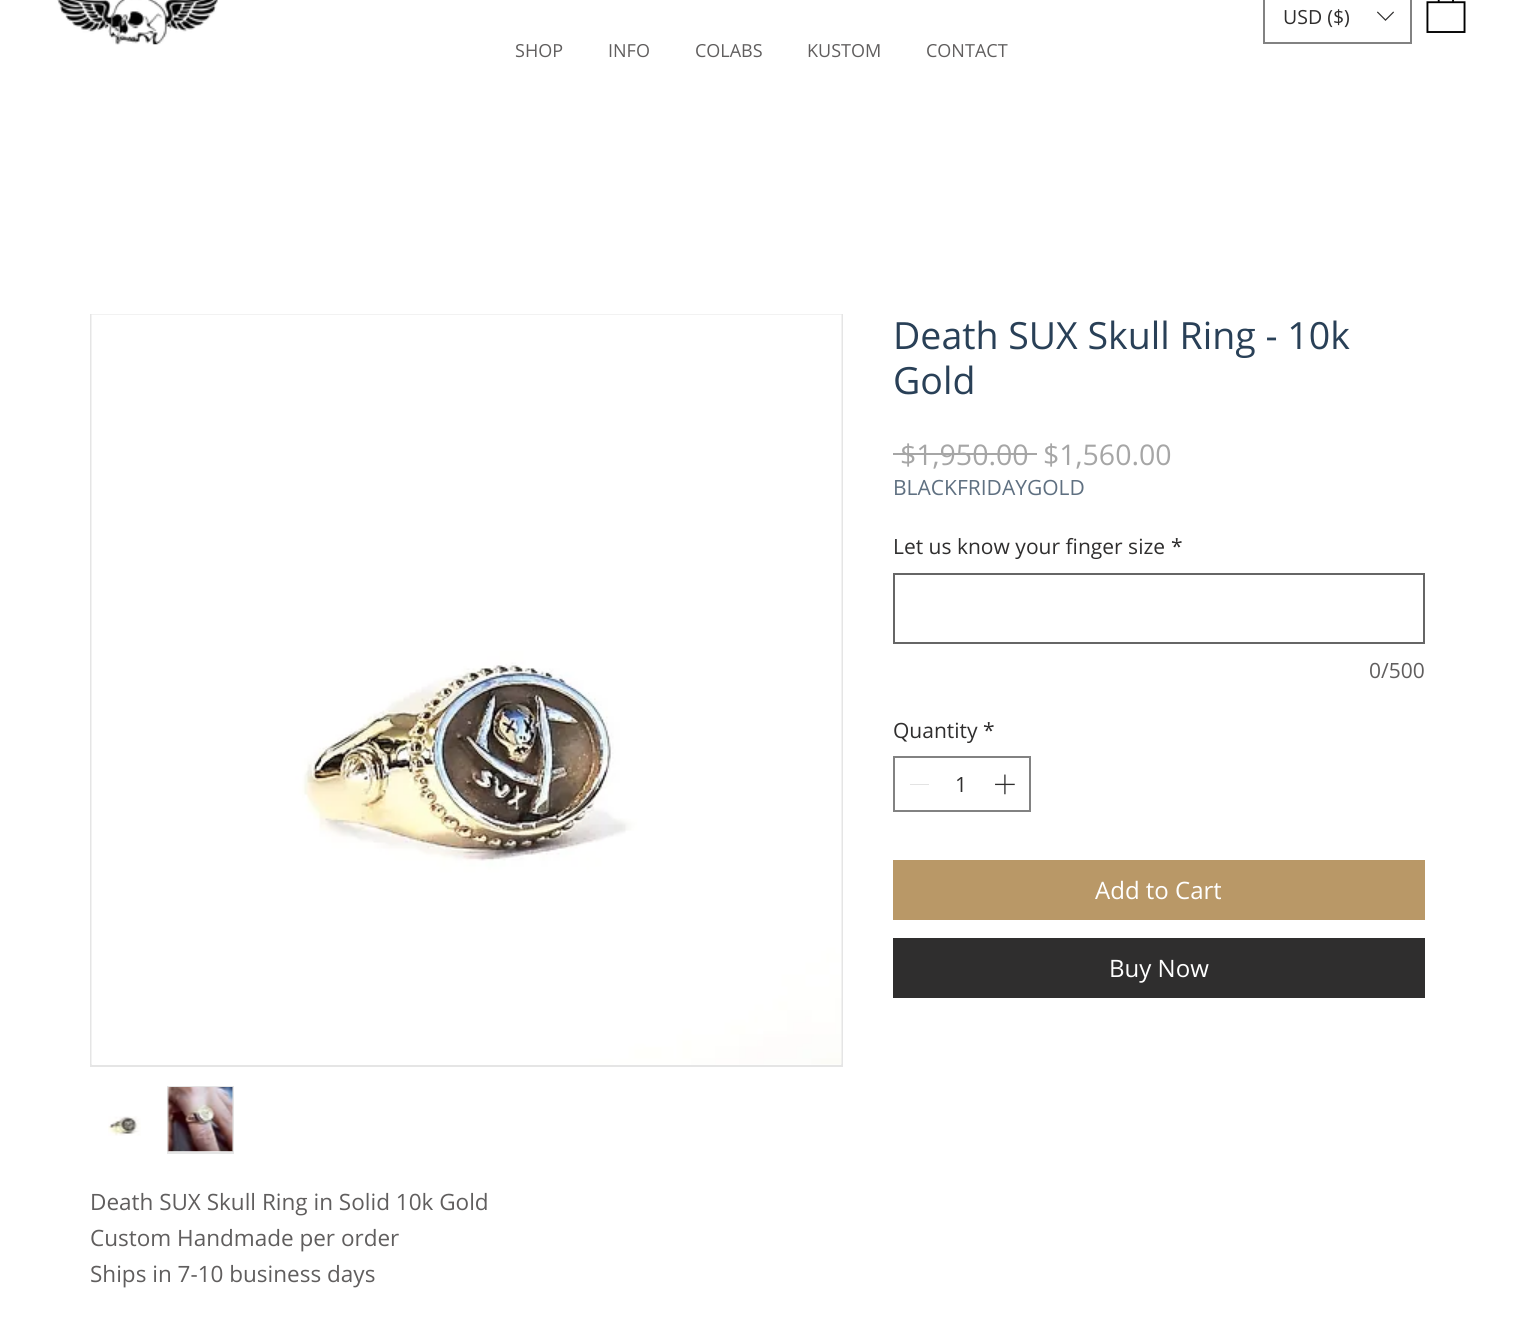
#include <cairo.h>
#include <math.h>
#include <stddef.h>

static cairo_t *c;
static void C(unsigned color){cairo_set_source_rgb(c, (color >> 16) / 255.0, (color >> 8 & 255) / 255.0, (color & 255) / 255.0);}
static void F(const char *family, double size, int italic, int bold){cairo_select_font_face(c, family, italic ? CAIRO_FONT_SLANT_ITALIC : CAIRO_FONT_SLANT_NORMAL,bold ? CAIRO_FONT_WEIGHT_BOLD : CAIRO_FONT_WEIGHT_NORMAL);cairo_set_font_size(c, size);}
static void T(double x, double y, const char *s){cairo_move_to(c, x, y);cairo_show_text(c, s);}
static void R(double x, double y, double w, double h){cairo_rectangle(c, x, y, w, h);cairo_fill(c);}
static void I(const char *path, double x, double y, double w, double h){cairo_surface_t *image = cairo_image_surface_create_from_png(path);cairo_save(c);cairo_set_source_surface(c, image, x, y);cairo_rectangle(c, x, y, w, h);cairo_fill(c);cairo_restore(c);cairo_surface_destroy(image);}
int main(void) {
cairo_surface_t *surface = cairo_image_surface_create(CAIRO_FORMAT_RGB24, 1515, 1334);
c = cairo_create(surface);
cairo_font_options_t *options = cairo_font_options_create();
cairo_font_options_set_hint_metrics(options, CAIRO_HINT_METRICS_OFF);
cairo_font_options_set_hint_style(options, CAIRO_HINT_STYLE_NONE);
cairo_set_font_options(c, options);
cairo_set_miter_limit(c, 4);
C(0xffffff);
cairo_paint(c);
I("1.png",57,0,161,45);
cairo_rectangle(c,1264,-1,147,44);
C(0x828282);
cairo_stroke(c);
F("Open Sans",19.5,0,0);
C(0x2f2e2e);
T(1283,24,"USD ($)");
I("2.png",1377,11,17,10);
I("3.png",1426,0,40,33);
F("Open Sans",18,0,0);
C(0x605e5e);
T(515,57,"SHOP");
T(608,57,"INFO");
T(695,57,"COLABS");
T(807,57,"KUSTOM");
T(926,57,"CONTACT");
F("Open Sans",37.5,0,0);
C(0x294057);
T(893,349,"Death SUX Skull Ring - 10k");
T(893,394,"Gold");
F("Open Sans",28.5,0,0);
C(0xa6a6a6);
T(900,465,"$1,950.00");
R(893,453,144,2);
T(1043,465,"$1,560.00");
F("Open Sans",21,0,0);
C(0x5f7081);
T(893,495,"BLACKFRIDAYGOLD");
C(0x2f2e2e);
T(893,554,"Let us know your finger size");
T(1171,554,"*");
cairo_rectangle(c,894,574,530,69);
C(0x666666);
cairo_stroke(c);
C(0x605e5e);
T(1369,678,"0/500");
C(0x2f2e2e);
T(893,738,"Quantity");
T(983,738,"*");
cairo_rectangle(c,894,757,136,54);
C(0x828282);
cairo_stroke(c);
C(0xe3e3e3);
R(910,784,19,1);
C(0x2f2e2e);
T(955,792,"1");
I("4.png",995,774,20,21);
C(0xb99867);
R(893,860,532,60);
F("Open Sans",24,0,0);
C(0xffffff);
T(1095,899,"Add to Cart");
C(0x2f2e2e);
R(893,938,532,60);
C(0xffffff);
T(1109,977,"Buy Now");
cairo_rectangle(c,91,315,751,751);
C(0xe5e5e5);
cairo_stroke(c);
I("5.png",91,314,751,751);
I("6.png",108,1116,33,20);
cairo_rectangle(c,168,1087,65,66);
cairo_stroke(c);
I("7.png",167,1087,66,65);
F("Open Sans",22.5,0,0);
C(0x605e5e);
T(90,1210,"Death SUX Skull Ring in Solid 10k Gold");
T(90,1246,"Custom Handmade per order");
T(90,1282,"Ships in 7-10 business days");
cairo_surface_write_to_png(surface, "o.png");
cairo_font_options_destroy(options);
cairo_destroy(c);
cairo_surface_destroy(surface);
return 0;
}
